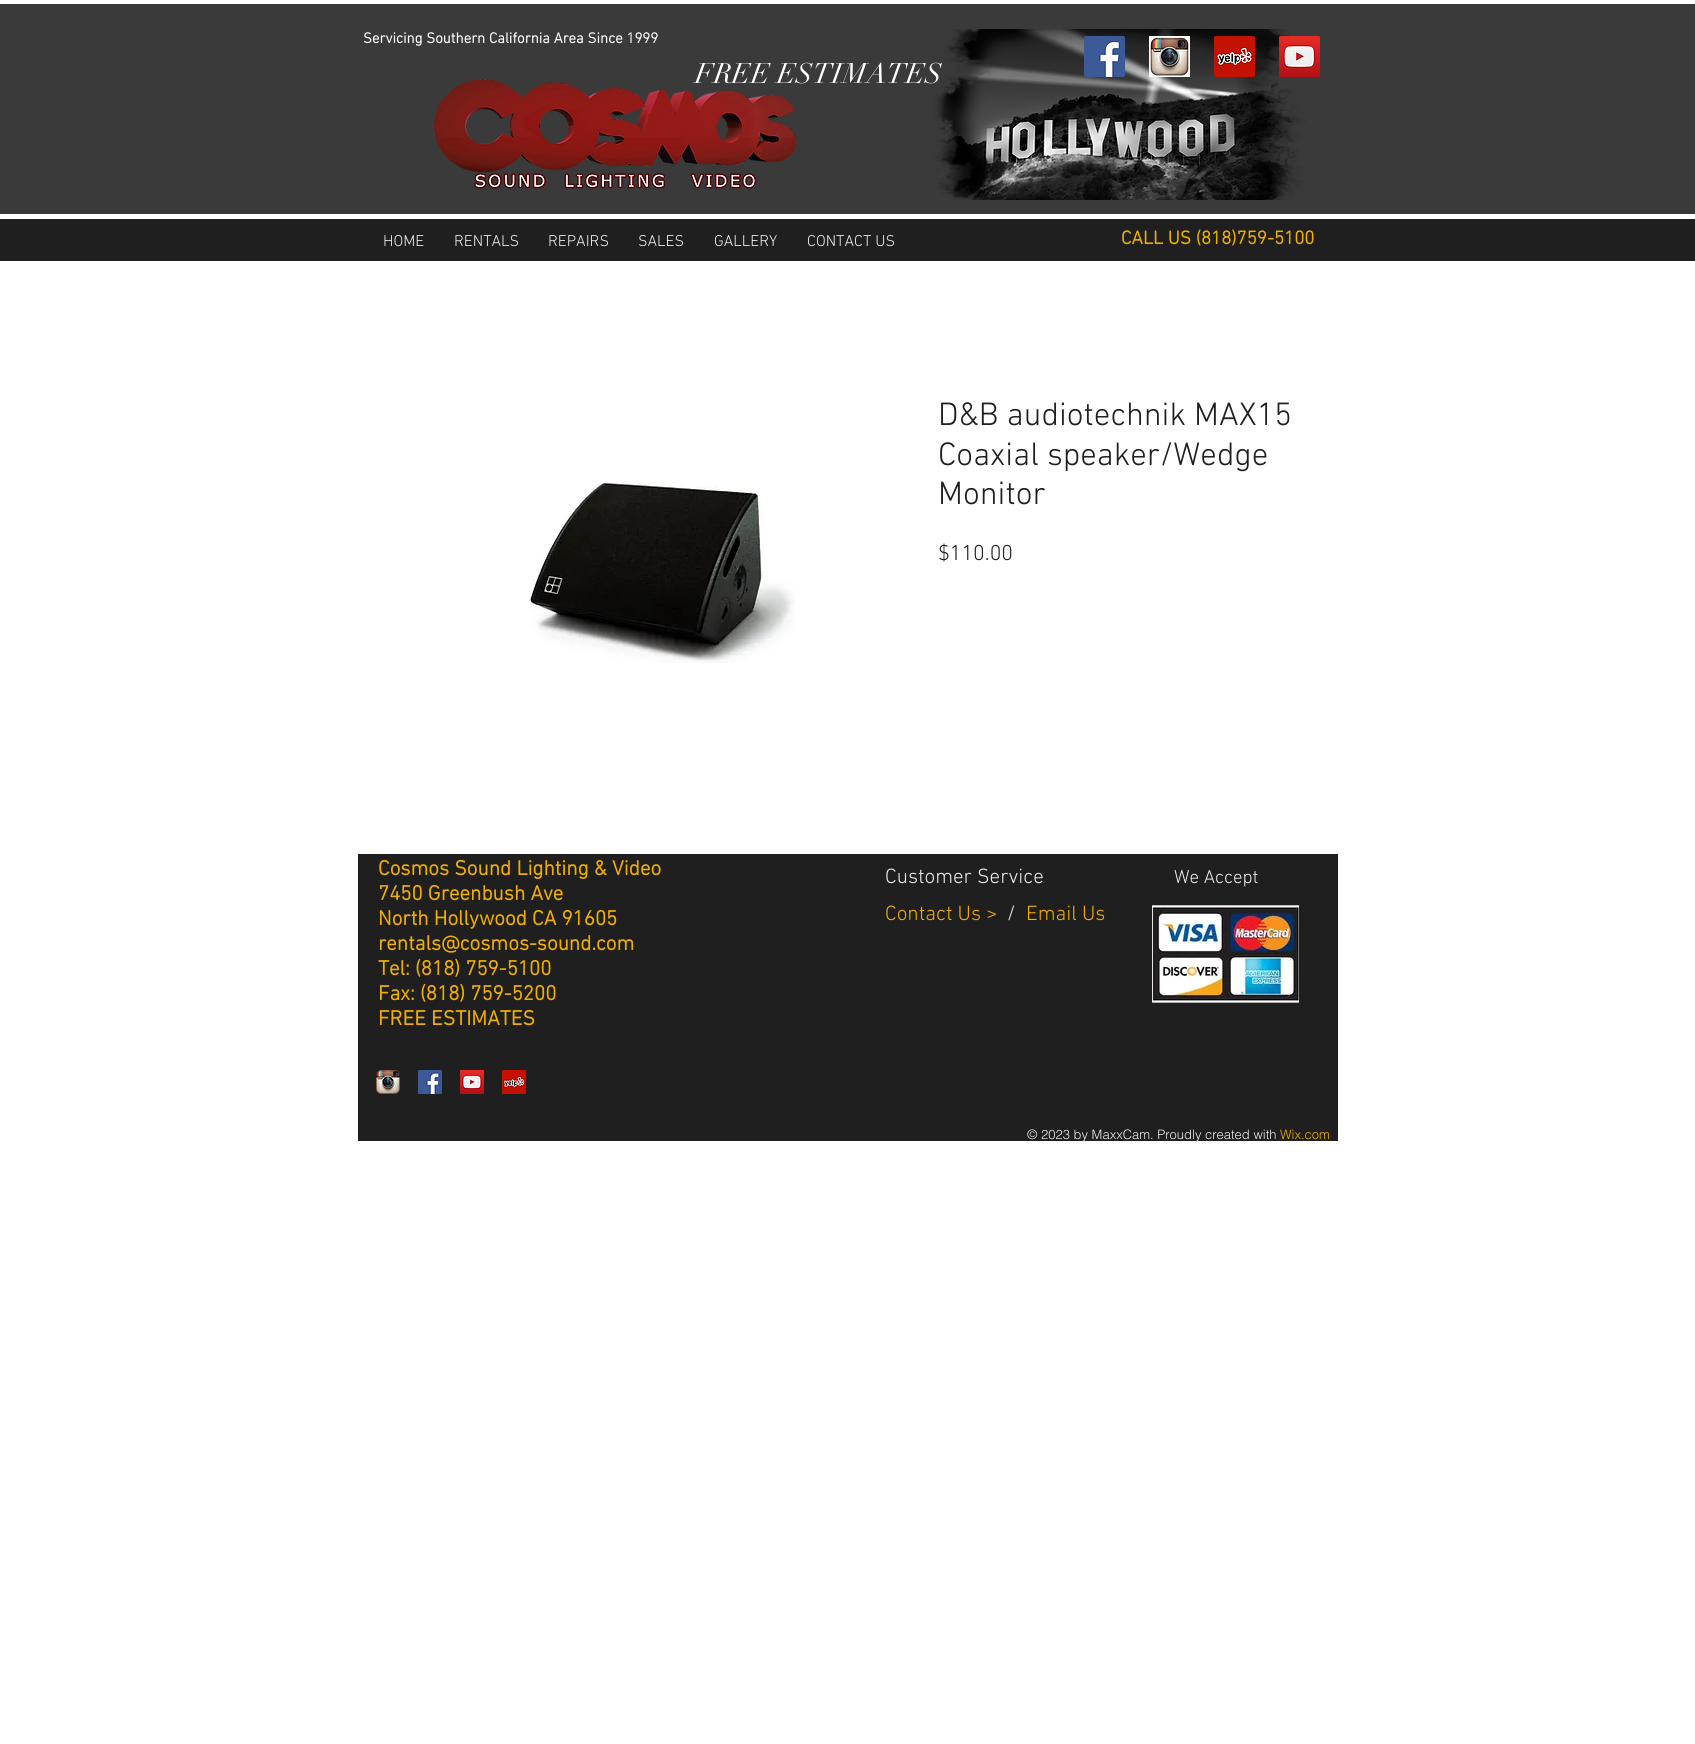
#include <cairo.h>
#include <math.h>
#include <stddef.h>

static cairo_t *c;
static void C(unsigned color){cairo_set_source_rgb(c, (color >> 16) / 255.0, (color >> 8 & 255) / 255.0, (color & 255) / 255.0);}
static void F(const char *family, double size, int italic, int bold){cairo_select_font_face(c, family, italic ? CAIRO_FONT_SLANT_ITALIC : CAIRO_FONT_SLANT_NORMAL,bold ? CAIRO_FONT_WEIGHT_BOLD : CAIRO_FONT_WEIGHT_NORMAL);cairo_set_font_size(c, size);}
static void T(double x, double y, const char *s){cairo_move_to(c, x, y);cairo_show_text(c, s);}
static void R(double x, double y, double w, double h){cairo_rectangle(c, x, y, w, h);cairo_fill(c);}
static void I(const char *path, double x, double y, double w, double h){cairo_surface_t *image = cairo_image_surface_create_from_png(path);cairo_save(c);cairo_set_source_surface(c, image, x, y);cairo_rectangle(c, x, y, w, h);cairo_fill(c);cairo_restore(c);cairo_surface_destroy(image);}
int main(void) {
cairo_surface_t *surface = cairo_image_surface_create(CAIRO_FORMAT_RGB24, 1695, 1744);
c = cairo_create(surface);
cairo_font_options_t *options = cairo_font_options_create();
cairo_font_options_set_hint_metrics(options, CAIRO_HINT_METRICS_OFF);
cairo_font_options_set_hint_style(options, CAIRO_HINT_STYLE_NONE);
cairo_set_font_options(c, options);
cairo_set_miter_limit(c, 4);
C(0xffffff);
cairo_paint(c);
C(0x3a3a3a);
R(0,4,1695,210);
I("1.png",434,29,877,171);
F("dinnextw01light",15,0,1);
C(0xffffff);
T(363,43,"Servicing Southern California Area Since 1999");
F("didot",28,0,0);
T(695,83,"FREE ESTIMATES");
I("2.png",1084,36,41,41);
I("3.png",1149,36,41,41);
I("4.png",1214,36,41,41);
I("5.png",1279,36,41,41);
C(0x1f1f1f);
R(0,219,1695,42);
F("dinnextw01light Light",16,0,0);
C(0xeeeeee);
T(383,246,"HOME");
T(454,246,"RENTALS");
T(548,246,"REPAIRS");
T(638,246,"SALES");
T(714,246,"GALLERY");
T(807,246,"CONTACT US");
F("dinnextw01light",19,0,1);
C(0xf0ae00);
T(1121,244,"CALL US (818)759-5100");
I("6.png",529,483,266,180);
F("dinnextw01light Light",33,0,0);
C(0x1f1f1f);
T(938,425,"D&B audiotechnik MAX15");
T(938,465,"Coaxial speaker/Wedge");
T(938,504,"Monitor");
F("dinnextw01light Light",22,0,0);
T(938,560,"$110.00");
R(358,854,980,287);
F("dinnextw01light",21,0,1);
C(0xf0ae00);
T(378,875,"Cosmos Sound Lighting & Video");
T(378,900,"7450 Greenbush Ave");
T(378,925,"North Hollywood CA 91605");
T(378,950,"rentals@cosmos-sound.com");
T(378,975,"Tel: (818) 759-5100");
T(378,1000,"Fax: (818) 759-5200");
T(378,1025,"FREE ESTIMATES");
F("dinnextw01light Light",21,0,0);
C(0xeeeeee);
T(885,883,"Customer Service");
C(0xf0ae00);
T(885,920,"Contact Us >");
C(0xeeeeee);
T(1007,920,"/");
C(0xf0ae00);
T(1026,920,"Email Us");
F("dinnextw01light Light",19,0,0);
C(0xeeeeee);
T(1174,883,"We Accept");
I("7.png",1152,905,147,98);
I("8.png",376,1070,24,24);
I("9.png",418,1070,24,24);
I("10.png",460,1070,24,24);
I("11.png",502,1070,24,24);
F("helvetica Light",13,0,0);
T(1027,1139,"© 2023 by MaxxCam. Proudly created with");
C(0xf0ae00);
T(1280,1139,"Wix.com");
cairo_surface_write_to_png(surface, "o.png");
cairo_font_options_destroy(options);
cairo_destroy(c);
cairo_surface_destroy(surface);
return 0;
}
